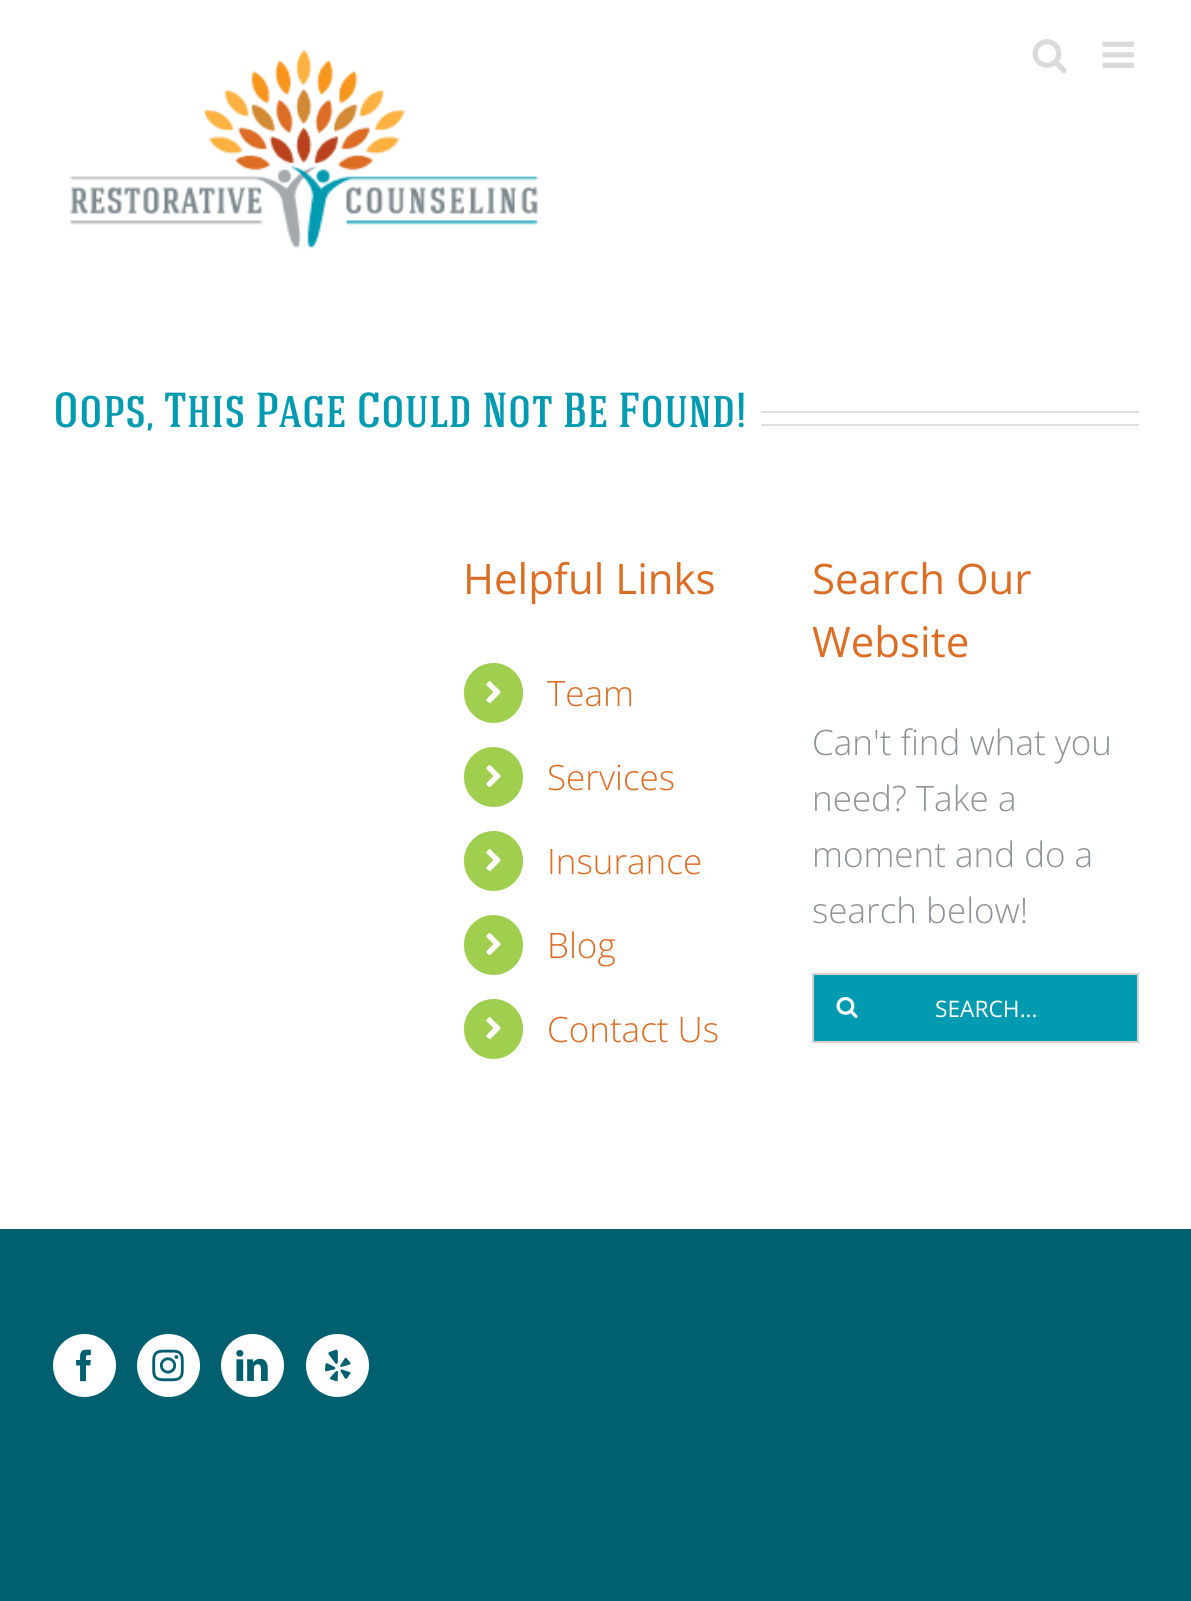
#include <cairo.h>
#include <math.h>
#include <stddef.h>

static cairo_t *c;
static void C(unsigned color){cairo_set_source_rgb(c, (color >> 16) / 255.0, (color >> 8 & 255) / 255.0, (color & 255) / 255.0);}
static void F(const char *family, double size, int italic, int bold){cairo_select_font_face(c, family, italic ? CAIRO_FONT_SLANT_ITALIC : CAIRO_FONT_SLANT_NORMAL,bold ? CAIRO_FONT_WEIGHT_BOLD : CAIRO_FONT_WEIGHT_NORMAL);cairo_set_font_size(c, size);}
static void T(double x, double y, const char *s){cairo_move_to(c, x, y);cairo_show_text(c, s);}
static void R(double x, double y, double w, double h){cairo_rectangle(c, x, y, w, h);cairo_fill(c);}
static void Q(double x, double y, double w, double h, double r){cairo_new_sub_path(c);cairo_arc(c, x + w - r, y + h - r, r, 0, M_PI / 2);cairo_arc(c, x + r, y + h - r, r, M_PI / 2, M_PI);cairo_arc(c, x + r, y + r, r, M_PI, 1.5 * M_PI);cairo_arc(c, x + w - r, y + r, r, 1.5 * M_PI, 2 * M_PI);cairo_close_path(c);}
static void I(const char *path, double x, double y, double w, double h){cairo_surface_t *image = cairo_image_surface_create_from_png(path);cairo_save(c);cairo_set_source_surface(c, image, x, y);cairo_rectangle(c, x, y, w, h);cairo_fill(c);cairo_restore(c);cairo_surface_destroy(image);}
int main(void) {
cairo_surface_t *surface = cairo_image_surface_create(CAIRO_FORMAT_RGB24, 1191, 1601);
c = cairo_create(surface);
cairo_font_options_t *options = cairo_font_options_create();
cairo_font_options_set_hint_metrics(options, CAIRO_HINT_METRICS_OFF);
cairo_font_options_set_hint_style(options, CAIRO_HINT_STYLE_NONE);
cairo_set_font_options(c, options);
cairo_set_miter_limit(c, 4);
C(0xffffff);
cairo_paint(c);
I("1.png",69,49,469,200);
I("2.png",1032,39,35,34);
I("3.png",1102,41,32,27);
F("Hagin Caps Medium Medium",49,0,0);
C(0x009ab1);
T(53,427,"Oops, This Page Could Not Be Found!");
C(0xe0dede);
R(761,411,378,2);
R(761,424,378,2);
F("Open Sans",42,0,0);
C(0xdc6d25);
T(463,594,"Helpful Links");
C(0xa0ce4e);
Q(464,663,59,60,29.5);
cairo_fill(c);
I("4.png",486,681,15,22);
F("Open Sans Light",35,0,0);
C(0xdc6d25);
T(547,706,"Team");
C(0xa0ce4e);
Q(464,747,59,60,29.5);
cairo_fill(c);
I("4.png",486,765,15,22);
C(0xdc6d25);
T(547,790,"Services");
C(0xa0ce4e);
Q(464,831,59,60,29.5);
cairo_fill(c);
I("4.png",486,849,15,22);
C(0xdc6d25);
T(547,874,"Insurance");
C(0xa0ce4e);
Q(464,915,59,60,29.5);
cairo_fill(c);
I("4.png",486,933,15,22);
C(0xdc6d25);
T(547,958,"Blog");
C(0xa0ce4e);
Q(464,999,59,60,29.5);
cairo_fill(c);
I("4.png",486,1017,15,22);
C(0xdc6d25);
T(547,1042,"Contact Us");
F("Open Sans",42,0,0);
T(812,594,"Search Our");
T(812,657,"Website");
F("Open Sans Light",35,0,0);
C(0x8e9396);
T(812,755,"Can't find what you");
T(812,811,"need? Take a");
T(812,867,"moment and do a");
T(812,923,"search below!");
C(0x009ab1);
cairo_rectangle(c,813,974,325,68);
cairo_fill_preserve(c);
C(0xd2d2d2);
cairo_stroke(c);
I("5.png",836,996,22,22);
F("Open Sans",22.75,0,0);
C(0xffffff);
T(935,1017,"SEARCH...");
C(0x016070);
R(0,1229,1191,372);
C(0xffffff);
cairo_new_path(c);
cairo_arc(c,84.5,1365.5,30.5,0,2 * M_PI);
cairo_fill_preserve(c);
cairo_stroke(c);
I("6.png",76,1349,15,33);
cairo_arc(c,168.5,1365.5,30.5,0,2 * M_PI);
cairo_fill_preserve(c);
cairo_stroke(c);
I("7.png",152,1349,32,33);
cairo_arc(c,252.5,1365.5,30.5,0,2 * M_PI);
cairo_fill_preserve(c);
cairo_stroke(c);
I("8.png",236,1349,32,32);
cairo_arc(c,337.5,1365.5,30.5,0,2 * M_PI);
cairo_fill_preserve(c);
cairo_stroke(c);
I("9.png",325,1349,26,33);
cairo_surface_write_to_png(surface, "o.png");
cairo_font_options_destroy(options);
cairo_destroy(c);
cairo_surface_destroy(surface);
return 0;
}
